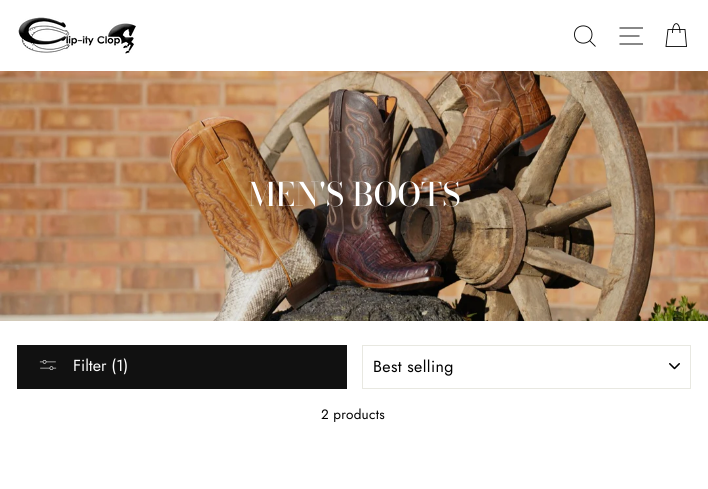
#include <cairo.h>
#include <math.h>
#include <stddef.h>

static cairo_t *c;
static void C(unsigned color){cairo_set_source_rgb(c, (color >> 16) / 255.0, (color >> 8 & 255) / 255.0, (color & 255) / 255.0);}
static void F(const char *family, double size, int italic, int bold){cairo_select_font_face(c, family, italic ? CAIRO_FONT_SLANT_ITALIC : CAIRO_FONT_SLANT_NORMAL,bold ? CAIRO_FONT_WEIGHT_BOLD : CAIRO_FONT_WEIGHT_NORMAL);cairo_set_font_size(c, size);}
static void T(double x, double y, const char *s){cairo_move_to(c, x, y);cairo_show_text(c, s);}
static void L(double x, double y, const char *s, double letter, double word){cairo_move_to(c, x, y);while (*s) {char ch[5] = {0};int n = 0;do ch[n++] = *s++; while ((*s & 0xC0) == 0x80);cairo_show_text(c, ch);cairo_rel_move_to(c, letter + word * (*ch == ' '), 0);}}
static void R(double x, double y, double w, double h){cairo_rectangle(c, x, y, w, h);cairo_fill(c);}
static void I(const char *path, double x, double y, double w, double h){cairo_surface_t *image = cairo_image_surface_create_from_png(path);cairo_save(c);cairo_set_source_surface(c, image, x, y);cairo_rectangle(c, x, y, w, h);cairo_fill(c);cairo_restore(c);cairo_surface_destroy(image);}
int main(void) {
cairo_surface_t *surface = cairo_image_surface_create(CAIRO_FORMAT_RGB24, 708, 489);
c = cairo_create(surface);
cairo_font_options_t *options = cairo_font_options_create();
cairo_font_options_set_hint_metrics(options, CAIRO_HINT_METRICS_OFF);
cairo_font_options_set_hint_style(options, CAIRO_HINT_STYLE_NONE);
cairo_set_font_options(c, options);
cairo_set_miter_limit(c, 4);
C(0xffffff);
cairo_paint(c);
I("1.png",18,17,118,37);
cairo_new_path(c);
cairo_move_to(c,592,34.5);
cairo_curve_to(c,592,46,574.5,46,574.5,34.5);
cairo_curve_to(c,574.5,23,592,23,592,34.5);
cairo_close_path(c);
cairo_move_to(c,595.5,46.5);
cairo_line_to(c,589.5,40.5);
C(0x000000);
cairo_set_line_width(c,.9);
cairo_stroke(c);
cairo_new_path(c);
cairo_move_to(c,619.5,28);
cairo_line_to(c,643,28);
cairo_move_to(c,619.5,36);
cairo_line_to(c,639.5,36);
cairo_move_to(c,619.5,44);
cairo_line_to(c,643,44);
cairo_move_to(c,672.5,33);
cairo_curve_to(c,672.5,20.5,680,20.5,680,33);
cairo_stroke(c);
cairo_new_path(c);
cairo_move_to(c,668,29.5);
cairo_line_to(c,685,29.5);
cairo_line_to(c,686.5,46.5);
cairo_line_to(c,666,46.5);
cairo_close_path(c);
cairo_stroke(c);
I("2.png",0,71,708,250);
F("Bodoni Moda Medium",32.25,0,0);
C(0xffffff);
T(248,206,"MEN'S BOOTS");
C(0x111111);
R(17,345,330,44);
I("3.png",39,360,18,10);
F("Jost",16,0,0);
C(0xffffff);
T(73,371,"Filter (1)");
I("4.png",669,363,11,7);
cairo_rectangle(c,362.5,345.5,328,43);
C(0xe8e8e1);
cairo_set_line_width(c,1);
cairo_stroke(c);
C(0x000000);
L(373,372,"Best selling",.4,0);
F("Jost",13.5,0,0);
L(321,419,"2 products",.25,0);
cairo_surface_write_to_png(surface, "o.png");
cairo_font_options_destroy(options);
cairo_destroy(c);
cairo_surface_destroy(surface);
return 0;
}
